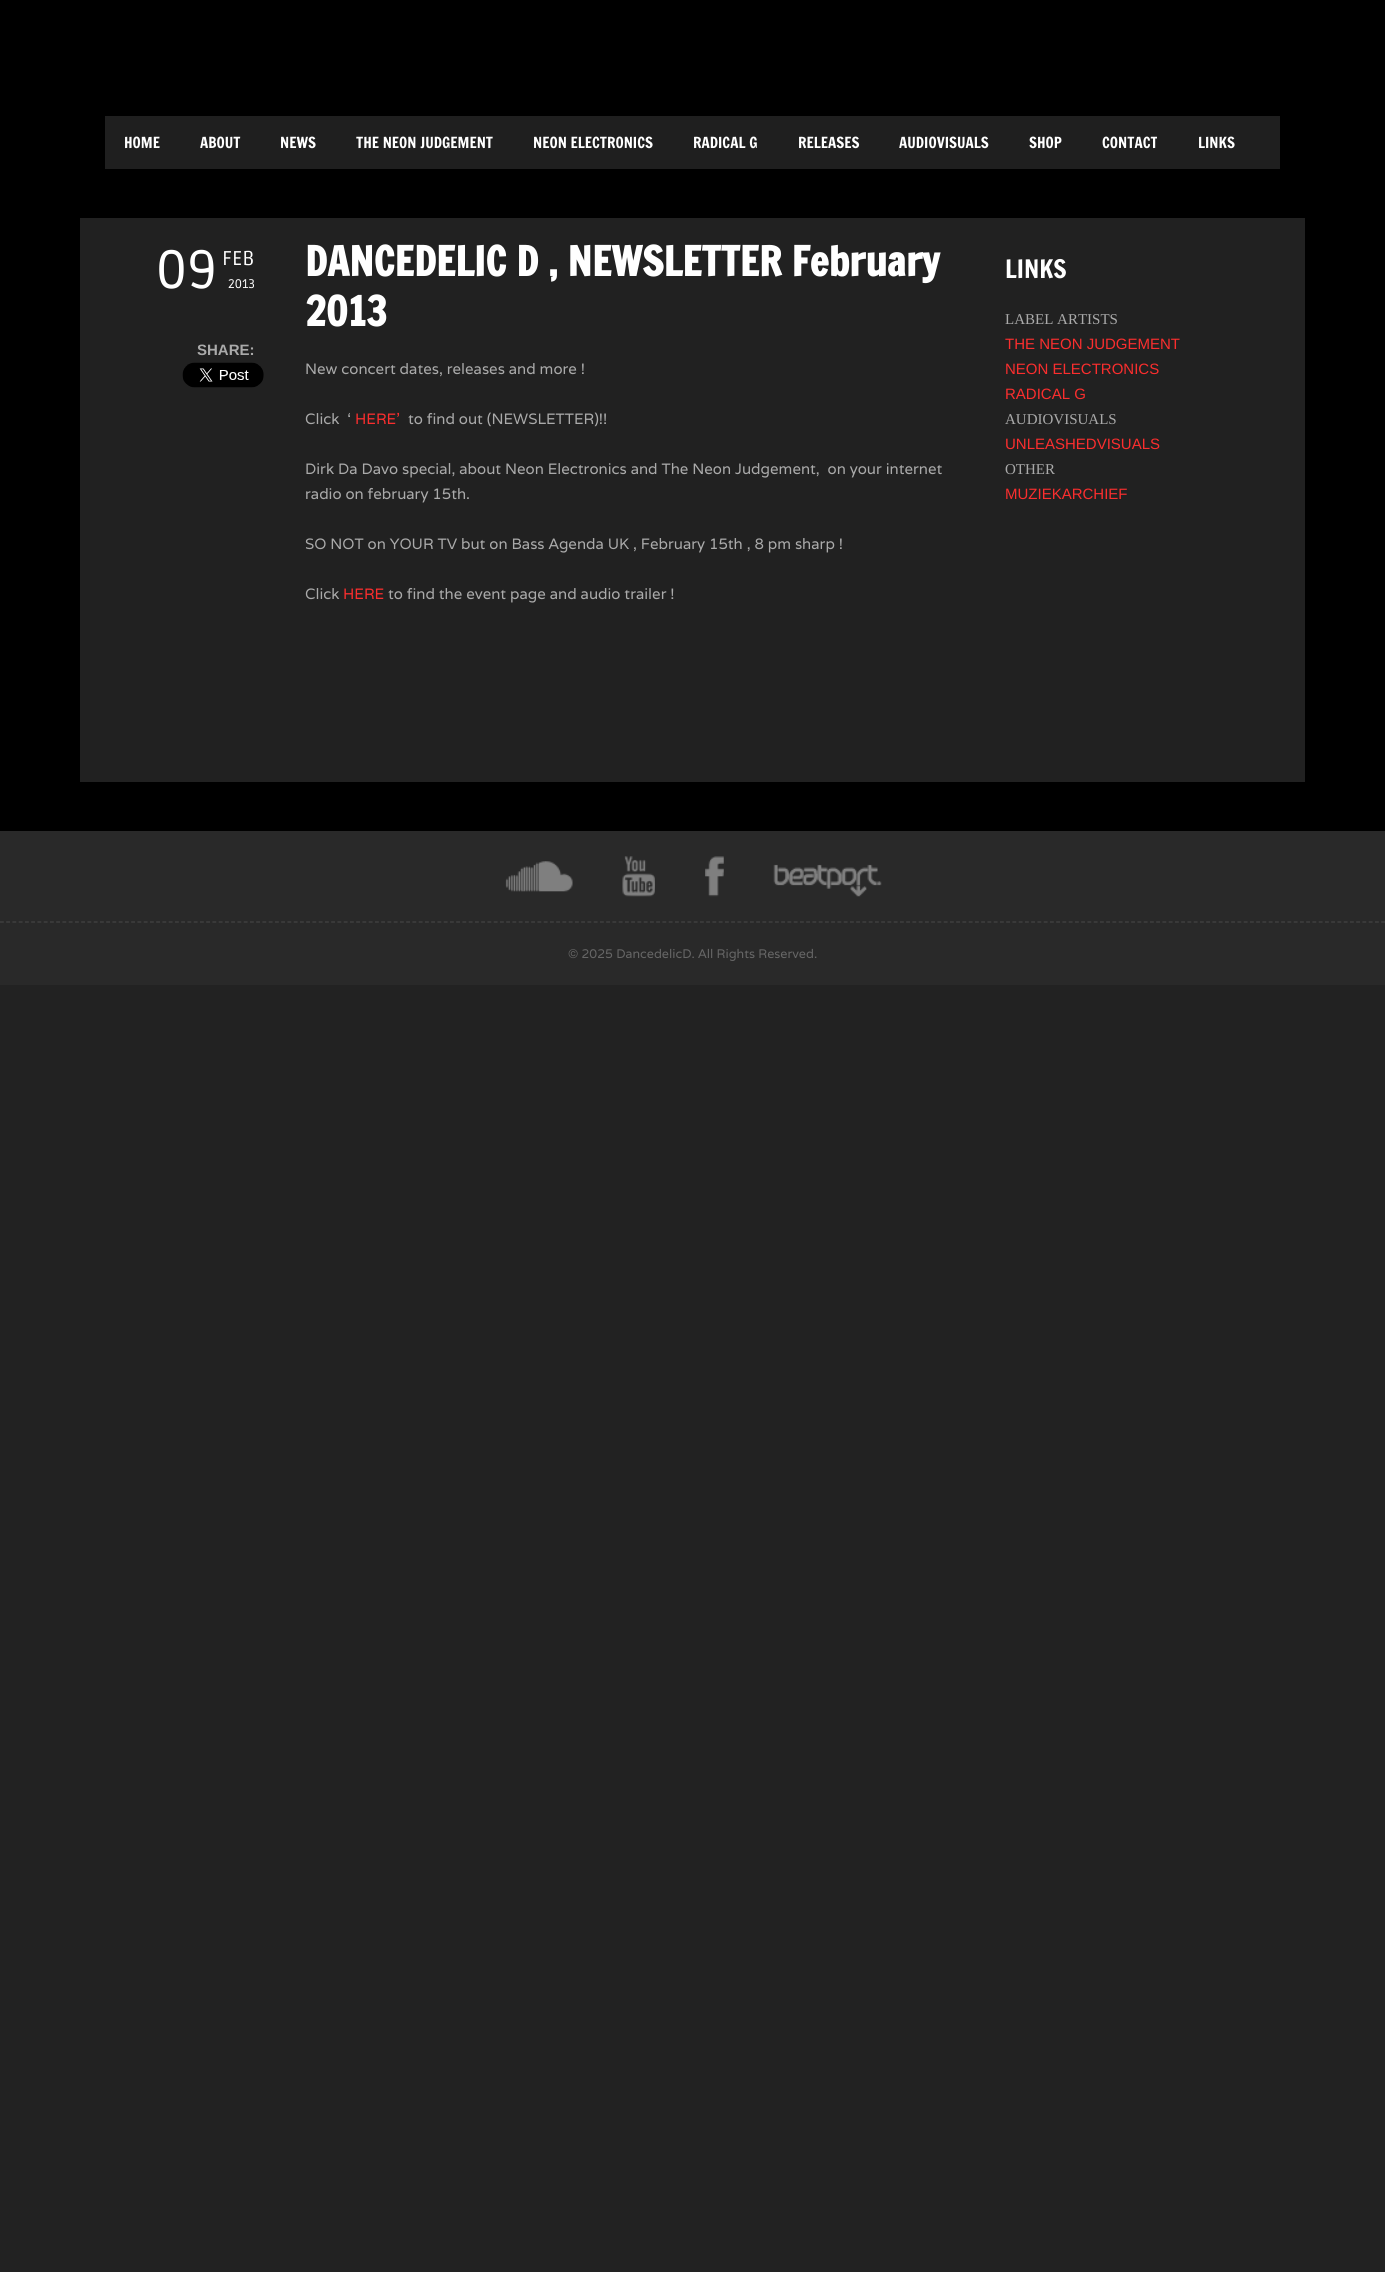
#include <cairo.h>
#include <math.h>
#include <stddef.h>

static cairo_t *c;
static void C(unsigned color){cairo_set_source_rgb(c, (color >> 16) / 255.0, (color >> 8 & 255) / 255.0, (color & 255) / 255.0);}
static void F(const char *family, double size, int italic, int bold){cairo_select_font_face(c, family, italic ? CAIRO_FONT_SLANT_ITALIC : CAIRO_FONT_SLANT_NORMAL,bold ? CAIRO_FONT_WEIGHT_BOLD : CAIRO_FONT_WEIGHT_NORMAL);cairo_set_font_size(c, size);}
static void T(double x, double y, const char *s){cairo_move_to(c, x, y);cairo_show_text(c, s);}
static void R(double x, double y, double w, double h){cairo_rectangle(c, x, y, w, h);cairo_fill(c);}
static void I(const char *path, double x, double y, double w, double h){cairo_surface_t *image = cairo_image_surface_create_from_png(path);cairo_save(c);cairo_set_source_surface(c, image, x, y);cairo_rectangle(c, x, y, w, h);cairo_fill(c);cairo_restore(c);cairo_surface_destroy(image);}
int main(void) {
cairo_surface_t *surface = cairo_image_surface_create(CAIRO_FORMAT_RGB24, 1385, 2272);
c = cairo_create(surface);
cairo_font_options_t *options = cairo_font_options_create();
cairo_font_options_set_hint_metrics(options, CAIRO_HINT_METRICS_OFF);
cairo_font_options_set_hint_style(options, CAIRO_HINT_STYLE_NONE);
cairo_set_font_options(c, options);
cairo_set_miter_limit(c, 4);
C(0x222222);
cairo_paint(c);
C(0x000000);
R(0,0,1385,831);
C(0x1f1f1f);
R(105,116,1175,53);
F("Francois One",15,0,0);
C(0xffffff);
T(124,148,"HOME");
T(200,148,"ABOUT");
T(280,148,"NEWS");
T(356,148,"THE NEON JUDGEMENT");
T(533,148,"NEON ELECTRONICS");
T(693,148,"RADICAL G");
T(798,148,"RELEASES");
T(899,148,"AUDIOVISUALS");
T(1029,148,"SHOP");
T(1102,148,"CONTACT");
T(1198,148,"LINKS");
C(0x212121);
R(80,218,1225,564);
F("Ruda",54,0,0);
C(0xffffff);
T(156,288,"09");
F("Ruda",20,0,0);
T(222,265,"FEB");
F("Ruda",12.5,0,0);
T(228,288,"2013");
F("Liberation Sans",15,0,1);
C(0xaaaaaa);
T(197,355,"SHARE:");
I("1.png",182,362,82,26);
F("Francois One",40,0,1);
C(0xffffff);
T(305,276,"DANCEDELIC D , NEWSLETTER February");
T(305,326,"2013");
F("Varela",15,0,0);
C(0xaaaaaa);
T(305,374,"New concert dates, releases and more !");
T(305,424,"Click  ‘");
C(0xfb2e2e);
T(355,424,"HERE’");
C(0xaaaaaa);
T(408,424,"to find out (NEWSLETTER)!!");
T(305,474,"Dirk Da Davo special, about Neon Electronics and The Neon Judgement,  on your internet");
T(305,499,"radio on february 15th.");
T(305,549,"SO NOT on YOUR TV but on Bass Agenda UK , February 15th , 8 pm sharp !");
T(305,599,"Click");
C(0xfb2e2e);
T(343,599,"HERE");
C(0xaaaaaa);
T(388,599,"to find the event page and audio trailer !");
F("Francois One",25,0,0);
C(0xffffff);
T(1005,278,"LINKS");
F("Liberation Serif",15,0,0);
C(0xaaaaaa);
T(1005,324,"LABEL ARTISTS");
F("Liberation Sans",15,0,0);
C(0xfb2e2e);
T(1005,349,"THE NEON JUDGEMENT");
T(1005,374,"NEON ELECTRONICS");
T(1005,399,"RADICAL G");
F("Liberation Serif",15,0,0);
C(0xaaaaaa);
T(1005,424,"AUDIOVISUALS");
F("Liberation Sans",15,0,0);
C(0xfb2e2e);
T(1005,449,"UNLEASHEDVISUALS");
F("Liberation Serif",15,0,0);
C(0xaaaaaa);
T(1005,474,"OTHER");
F("Liberation Sans",15,0,0);
C(0xfb2e2e);
T(1005,499,"MUZIEKARCHIEF");
C(0x292929);
R(0,831,1385,154);
cairo_new_path(c);
cairo_move_to(c,0,922);
cairo_line_to(c,1385,922);
C(0x444444);
cairo_set_line_width(c,1.2);
cairo_set_dash(c,(double[]){3.75,2.5},2,0);
cairo_stroke(c);
I("2.png",505,861,68,31);
I("3.png",622,856,33,41);
I("4.png",705,856,19,41);
I("5.png",773,864,109,33);
F("Varela",12.5,0,0);
C(0x666666);
T(568,958,"© 2025 DancedelicD. All Rights Reserved.");
cairo_surface_write_to_png(surface, "o.png");
cairo_font_options_destroy(options);
cairo_destroy(c);
cairo_surface_destroy(surface);
return 0;
}
